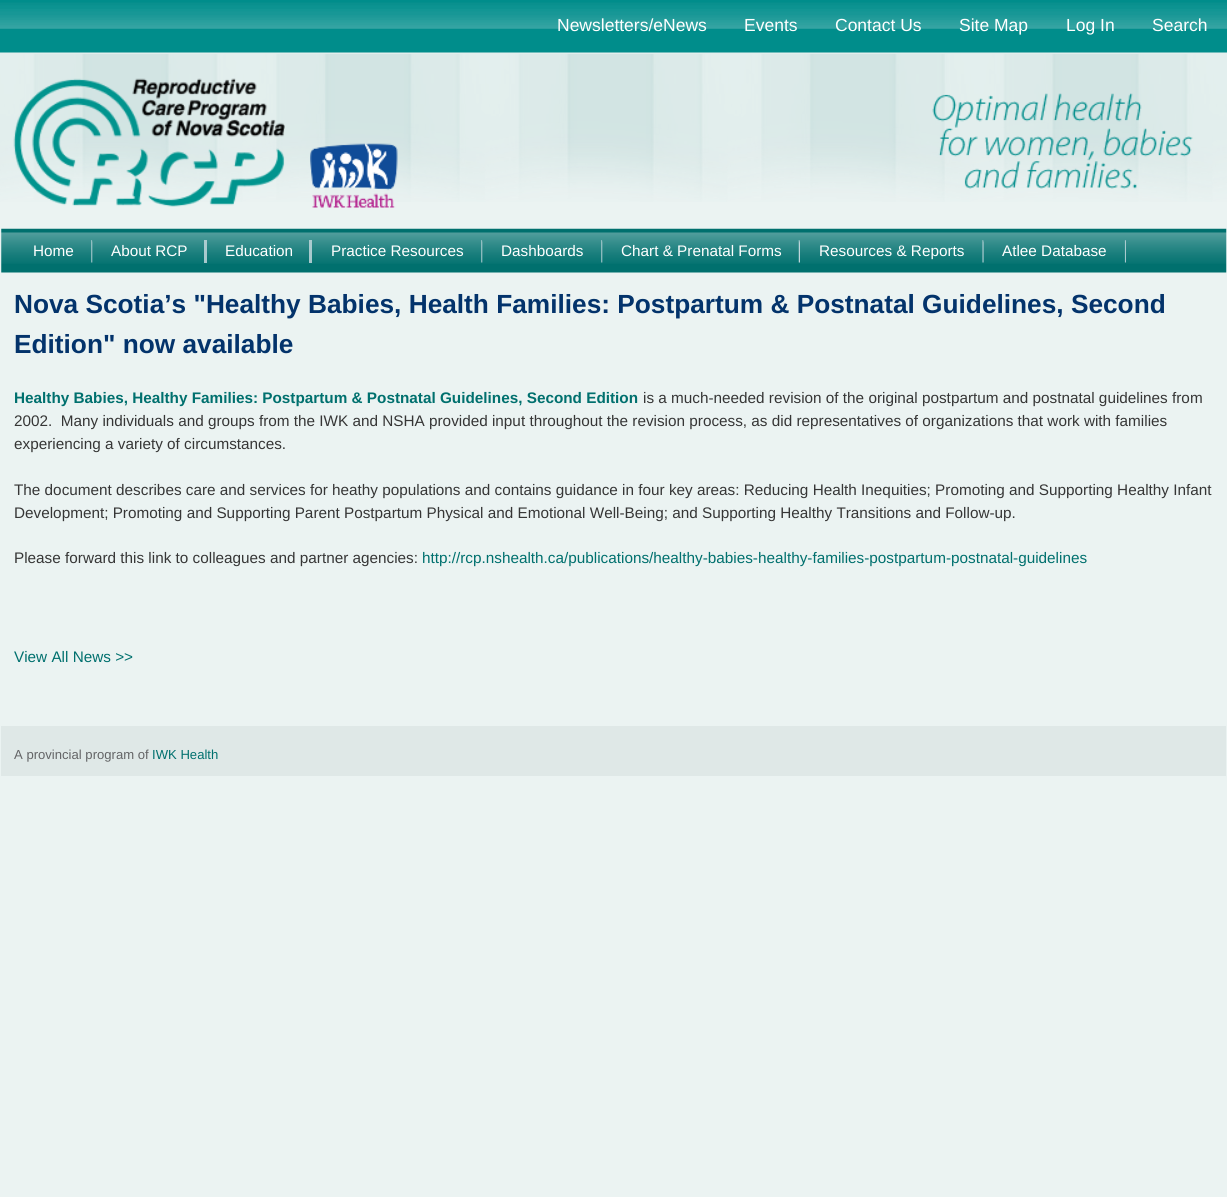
#include <cairo.h>
#include <math.h>
#include <stddef.h>

static cairo_t *c;
static void C(unsigned color){cairo_set_source_rgb(c, (color >> 16) / 255.0, (color >> 8 & 255) / 255.0, (color & 255) / 255.0);}
static void F(const char *family, double size, int italic, int bold){cairo_select_font_face(c, family, italic ? CAIRO_FONT_SLANT_ITALIC : CAIRO_FONT_SLANT_NORMAL,bold ? CAIRO_FONT_WEIGHT_BOLD : CAIRO_FONT_WEIGHT_NORMAL);cairo_set_font_size(c, size);}
static void T(double x, double y, const char *s){cairo_move_to(c, x, y);cairo_show_text(c, s);}
static void R(double x, double y, double w, double h){cairo_rectangle(c, x, y, w, h);cairo_fill(c);}
static void I(const char *path, double x, double y, double w, double h){cairo_surface_t *image = cairo_image_surface_create_from_png(path);cairo_save(c);cairo_set_source_surface(c, image, x, y);cairo_rectangle(c, x, y, w, h);cairo_fill(c);cairo_restore(c);cairo_surface_destroy(image);}
int main(void) {
cairo_surface_t *surface = cairo_image_surface_create(CAIRO_FORMAT_RGB24, 1227, 1197);
c = cairo_create(surface);
cairo_font_options_t *options = cairo_font_options_create();
cairo_font_options_set_hint_metrics(options, CAIRO_HINT_METRICS_OFF);
cairo_font_options_set_hint_style(options, CAIRO_HINT_STYLE_NONE);
cairo_set_font_options(c, options);
cairo_set_miter_limit(c, 4);
C(0xebf3f2);
cairo_paint(c);
I("1.png",0,53,1227,149);
I("2.png",0,0,1227,54);
F("Liberation Sans",17.5,0,0);
C(0xffffff);
T(557,31,"Newsletters/eNews");
T(744,31,"Events");
T(835,31,"Contact Us");
T(959,31,"Site Map");
T(1066,31,"Log In");
T(1152,31,"Search");
I("3.png",932,93,261,96);
I("4.png",13,78,272,129);
I("5.png",310,143,88,65);
I("6.png",1,228,1226,45);
I("7.png",91,240,2,23);
F("Liberation Sans",15.3,0,0);
T(33,256,"Home");
cairo_set_source_rgba(c,0.745,0.835,0.851,0.87);
R(204,240,3,23);
C(0xffffff);
T(111,256,"About RCP");
cairo_set_source_rgba(c,0.745,0.835,0.851,0.87);
R(309,240,3,23);
C(0xffffff);
T(225,256,"Education");
I("7.png",481,240,2,23);
T(331,256,"Practice Resources");
I("7.png",601,240,2,23);
T(501,256,"Dashboards");
I("8.png",798,240,2,23);
T(621,256,"Chart & Prenatal Forms");
I("9.png",982,240,2,23);
T(819,256,"Resources & Reports");
I("10.png",1124,240,2,23);
T(1002,256,"Atlee Database");
F("Liberation Sans",26.25,0,1);
C(0x03336b);
T(14,313,"Nova Scotia’s \"Healthy Babies, Health Families: Postpartum & Postnatal Guidelines, Second");
T(14,353,"Edition\" now available");
F("Liberation Sans",15.3,0,1);
C(0x00706e);
T(14,403,"Healthy Babies, Healthy Families: Postpartum & Postnatal Guidelines, Second Edition");
F("Liberation Sans",15.3,0,0);
C(0x363636);
T(643,403,"is a much-needed revision of the original postpartum and postnatal guidelines from");
T(14,426,"2002.  Many individuals and groups from the IWK and NSHA provided input throughout the revision process, as did representatives of organizations that work with families");
T(14,449,"experiencing a variety of circumstances.");
T(14,495,"The document describes care and services for heathy populations and contains guidance in four key areas: Reducing Health Inequities; Promoting and Supporting Healthy Infant");
T(14,518,"Development; Promoting and Supporting Parent Postpartum Physical and Emotional Well-Being; and Supporting Healthy Transitions and Follow-up.");
T(14,563,"Please forward this link to colleagues and partner agencies:");
C(0x00706e);
T(422,563,"http://rcp.nshealth.ca/publications/healthy-babies-healthy-families-postpartum-postnatal-guidelines");
T(14,662,"View All News >>");
C(0xdfe8e7);
R(1,726,1225,50);
F("Liberation Sans",13.1,0,0);
C(0x636466);
T(14,759,"A provincial program of");
C(0x00706e);
T(152,759,"IWK Health");
cairo_surface_write_to_png(surface, "o.png");
cairo_font_options_destroy(options);
cairo_destroy(c);
cairo_surface_destroy(surface);
return 0;
}
